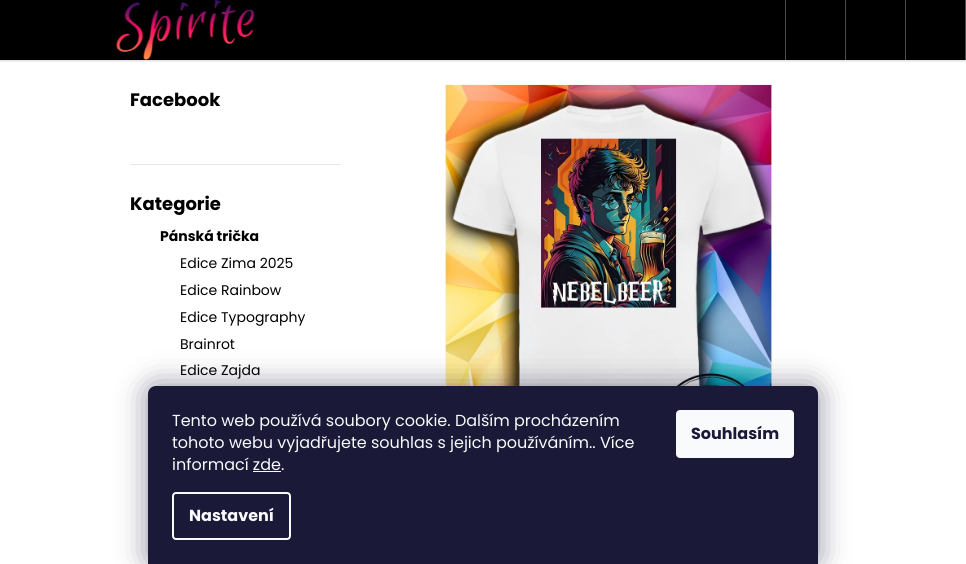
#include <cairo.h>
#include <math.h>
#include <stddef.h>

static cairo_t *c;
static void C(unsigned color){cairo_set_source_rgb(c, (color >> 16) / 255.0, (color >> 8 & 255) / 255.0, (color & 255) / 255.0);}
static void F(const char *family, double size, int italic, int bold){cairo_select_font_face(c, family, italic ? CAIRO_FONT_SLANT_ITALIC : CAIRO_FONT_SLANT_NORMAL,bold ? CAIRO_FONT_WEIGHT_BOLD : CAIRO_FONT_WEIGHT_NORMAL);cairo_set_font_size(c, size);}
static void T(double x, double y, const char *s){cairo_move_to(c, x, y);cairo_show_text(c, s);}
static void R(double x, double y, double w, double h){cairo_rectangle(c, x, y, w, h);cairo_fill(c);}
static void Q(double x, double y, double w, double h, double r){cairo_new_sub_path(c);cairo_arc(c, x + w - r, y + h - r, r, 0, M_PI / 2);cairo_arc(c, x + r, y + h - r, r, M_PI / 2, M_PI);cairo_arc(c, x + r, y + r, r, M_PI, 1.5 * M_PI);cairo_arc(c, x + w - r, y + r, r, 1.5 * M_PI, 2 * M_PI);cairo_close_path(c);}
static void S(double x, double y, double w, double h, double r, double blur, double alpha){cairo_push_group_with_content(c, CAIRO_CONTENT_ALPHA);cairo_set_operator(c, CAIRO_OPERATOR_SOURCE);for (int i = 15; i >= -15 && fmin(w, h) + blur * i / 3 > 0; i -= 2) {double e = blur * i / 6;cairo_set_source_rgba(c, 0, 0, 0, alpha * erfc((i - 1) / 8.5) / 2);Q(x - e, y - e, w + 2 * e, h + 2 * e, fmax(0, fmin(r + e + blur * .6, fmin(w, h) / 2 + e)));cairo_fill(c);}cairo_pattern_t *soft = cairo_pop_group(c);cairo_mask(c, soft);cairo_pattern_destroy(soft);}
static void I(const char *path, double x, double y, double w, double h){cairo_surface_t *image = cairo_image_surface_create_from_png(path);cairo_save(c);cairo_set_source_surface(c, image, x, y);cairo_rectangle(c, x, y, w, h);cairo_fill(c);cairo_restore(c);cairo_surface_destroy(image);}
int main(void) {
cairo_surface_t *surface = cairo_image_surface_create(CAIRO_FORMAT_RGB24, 966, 564);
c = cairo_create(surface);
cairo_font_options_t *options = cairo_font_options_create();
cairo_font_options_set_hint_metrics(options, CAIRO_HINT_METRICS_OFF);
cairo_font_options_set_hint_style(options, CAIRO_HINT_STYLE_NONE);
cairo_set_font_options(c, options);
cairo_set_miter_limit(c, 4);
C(0xffffff);
cairo_paint(c);
C(0x000000);
S(0,1,966,60,0,1,.16);
C(0x000000);
R(0,0,965,60);
I("1.png",116,0,139,60);
C(0x4d4d4d);
R(965,0,1,60);
R(785,0,1,60);
R(845,0,1,60);
R(905,0,1,60);
F("Poppins",18,0,1);
C(0x000000);
T(130,106,"Facebook");
C(0xe6e6e6);
R(130,164,210,1);
C(0x000000);
T(130,210,"Kategorie");
F("Poppins",14,0,1);
T(160,241,"Pánská trička");
F("Poppins",14,0,0);
T(180,268,"Edice Zima 2025");
T(180,295,"Edice Rainbow");
T(180,322,"Edice Typography");
T(180,349,"Brainrot");
T(180,375,"Edice Zajda");
I("2.png",444,82,329,304);
C(0x1b1939);
S(148,386,670,178,8,15,.5);
C(0x1a1937);
cairo_new_path(c);
cairo_move_to(c,156,386);
cairo_line_to(c,810,386);
cairo_curve_to(c,814.5,386,818,389.5,818,394);
cairo_line_to(c,818,564);
cairo_line_to(c,148,564);
cairo_line_to(c,148,394);
cairo_curve_to(c,148,389.5,151.5,386,156,386);
cairo_close_path(c);
cairo_fill(c);
F("Poppins",16,0,0);
C(0xf8fafb);
T(172,426,"Tento web používá soubory cookie. Dalším procházením");
T(172,448,"tohoto webu vyjadřujete souhlas s jejich používáním.. Více");
T(172,470,"informací zde.");
R(253,471,28,1);
Q(173,493,117,46,3);
cairo_stroke(c);
F("Poppins",16,0,1);
T(189,521,"Nastavení");
Q(676,410,118,48,4);
cairo_fill(c);
C(0x1a1937);
T(691,439,"Souhlasím");
cairo_surface_write_to_png(surface, "o.png");
cairo_font_options_destroy(options);
cairo_destroy(c);
cairo_surface_destroy(surface);
return 0;
}
